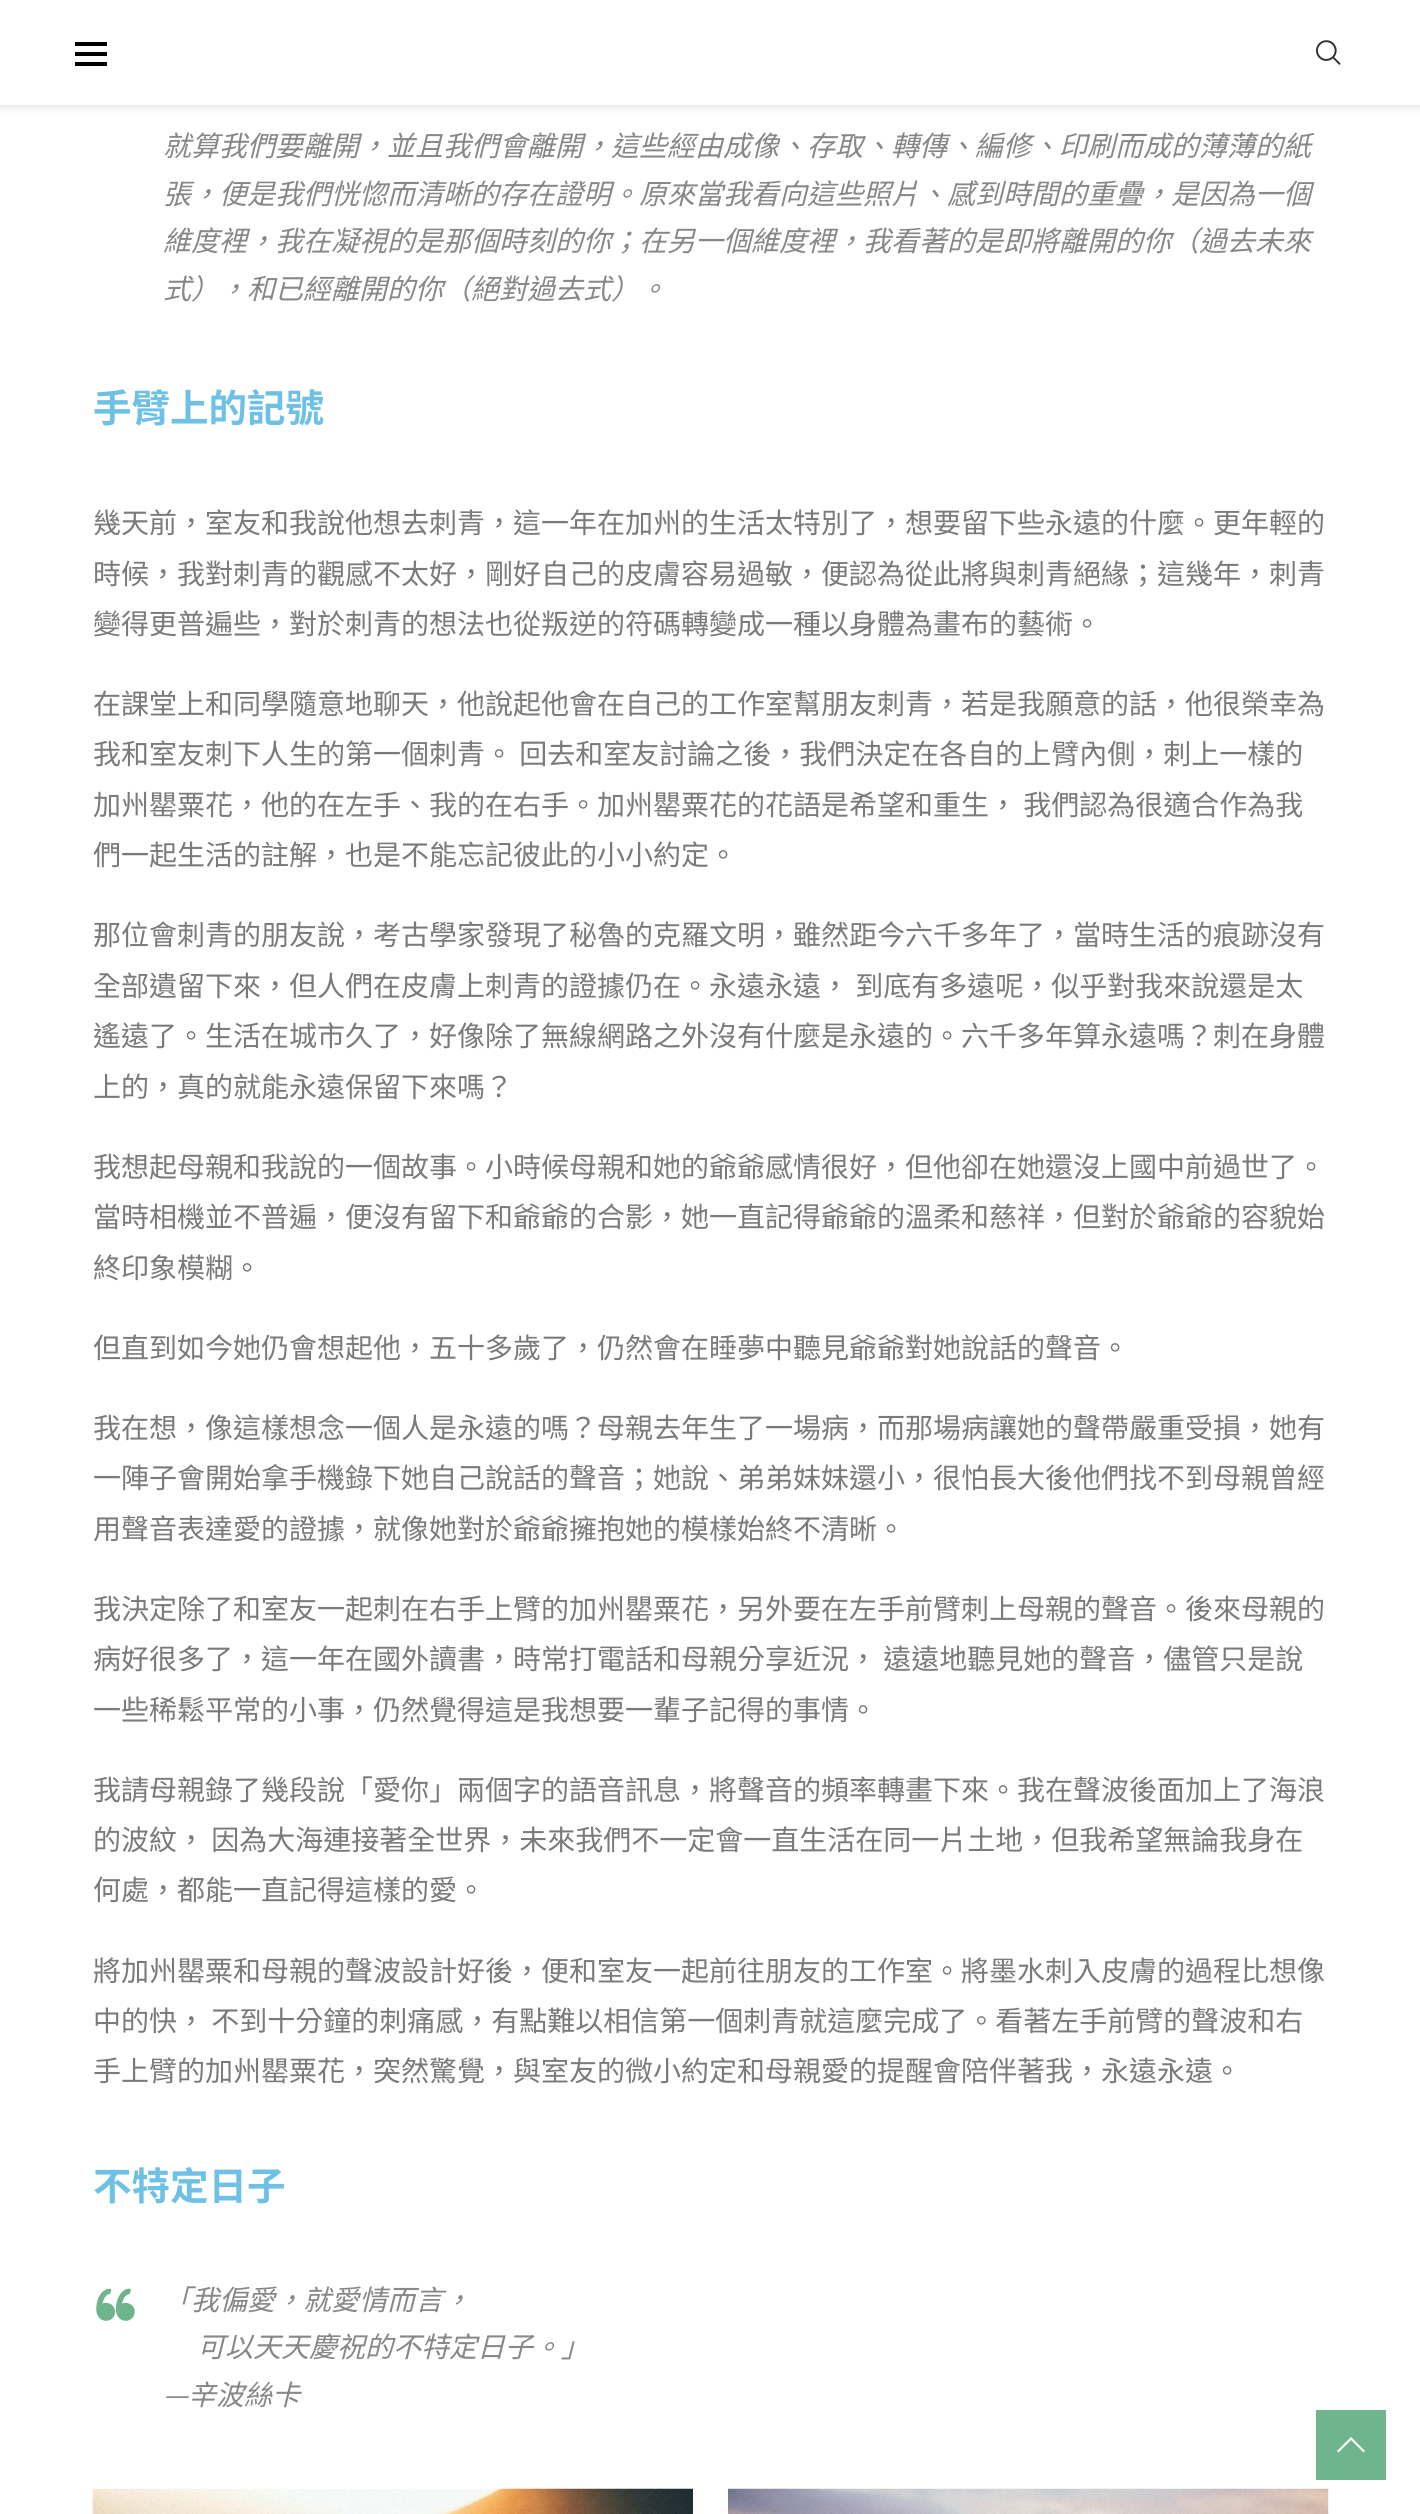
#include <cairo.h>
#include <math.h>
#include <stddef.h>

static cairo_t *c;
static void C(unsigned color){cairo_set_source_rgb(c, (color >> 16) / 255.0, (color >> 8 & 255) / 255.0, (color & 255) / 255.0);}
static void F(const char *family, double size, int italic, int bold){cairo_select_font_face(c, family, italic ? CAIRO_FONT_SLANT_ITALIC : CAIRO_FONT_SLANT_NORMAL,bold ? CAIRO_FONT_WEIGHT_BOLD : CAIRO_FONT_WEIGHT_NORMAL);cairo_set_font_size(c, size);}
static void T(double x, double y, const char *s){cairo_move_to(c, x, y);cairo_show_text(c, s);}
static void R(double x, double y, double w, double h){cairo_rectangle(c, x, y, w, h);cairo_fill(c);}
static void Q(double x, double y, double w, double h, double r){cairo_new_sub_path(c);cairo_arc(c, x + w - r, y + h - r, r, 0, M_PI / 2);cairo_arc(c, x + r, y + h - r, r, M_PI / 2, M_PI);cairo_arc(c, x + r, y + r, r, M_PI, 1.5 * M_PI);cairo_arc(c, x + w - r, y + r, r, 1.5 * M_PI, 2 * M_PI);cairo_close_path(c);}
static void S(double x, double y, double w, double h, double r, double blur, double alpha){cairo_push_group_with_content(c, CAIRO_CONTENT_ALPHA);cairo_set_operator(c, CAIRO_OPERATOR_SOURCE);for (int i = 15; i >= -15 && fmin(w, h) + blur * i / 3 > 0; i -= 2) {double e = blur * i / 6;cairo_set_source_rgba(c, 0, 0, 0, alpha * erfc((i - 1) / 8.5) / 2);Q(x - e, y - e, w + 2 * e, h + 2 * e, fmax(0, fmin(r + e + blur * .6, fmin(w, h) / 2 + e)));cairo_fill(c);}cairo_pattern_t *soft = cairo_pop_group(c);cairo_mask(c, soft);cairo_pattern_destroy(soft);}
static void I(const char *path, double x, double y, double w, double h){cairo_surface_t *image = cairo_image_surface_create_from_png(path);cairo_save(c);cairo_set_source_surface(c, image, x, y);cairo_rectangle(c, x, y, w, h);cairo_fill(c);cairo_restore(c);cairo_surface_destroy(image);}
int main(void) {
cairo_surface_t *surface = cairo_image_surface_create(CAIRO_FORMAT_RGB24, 1420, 2514);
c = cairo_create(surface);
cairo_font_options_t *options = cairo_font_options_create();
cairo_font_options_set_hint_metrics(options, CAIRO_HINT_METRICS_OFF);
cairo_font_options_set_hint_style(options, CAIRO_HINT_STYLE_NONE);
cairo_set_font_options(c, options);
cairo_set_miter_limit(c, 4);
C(0xffffff);
cairo_paint(c);
C(0xbebebe);
S(0,2,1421,105,0,4.5,.46);
C(0xffffff);
R(0,0,1420,105);
C(0x000000);
R(75,42,32,4);
R(75,52,32,4);
R(75,62,32,4);
I("1.png",1316,40,25,25);
F("Noto Sans TC",28,1,0);
C(0x888888);
T(163,156,"就算我們要離開，並且我們會離開，這些經由成像、存取、轉傳、編修、印刷而成的薄薄的紙");
T(163,204,"張，便是我們恍惚而清晰的存在證明。原來當我看向這些照片、感到時間的重疊，是因為一個");
T(163,251,"維度裡，我在凝視的是那個時刻的你；在另一個維度裡，我看著的是即將離開的你（過去未來");
T(163,299,"式），和已經離開的你（絕對過去式）。");
F("Noto Sans CJK TC",38.5,0,1);
C(0x6ec1e4);
T(93,422,"手臂上的記號");
F("Noto Sans TC",28,0,0);
C(0x7a7a7a);
T(93,533,"幾天前，室友和我說他想去刺青，這一年在加州的生活太特別了，想要留下些永遠的什麼。更年輕的");
T(93,584,"時候，我對刺青的觀感不太好，剛好自己的皮膚容易過敏，便認為從此將與刺青絕緣；這幾年，刺青");
T(93,634,"變得更普遍些，對於刺青的想法也從叛逆的符碼轉變成一種以身體為畫布的藝術。");
T(93,714,"在課堂上和同學隨意地聊天，他說起他會在自己的工作室幫朋友刺青，若是我願意的話，他很榮幸為");
T(93,764,"我和室友刺下人生的第一個刺青。 回去和室友討論之後，我們決定在各自的上臂內側，刺上一樣的");
T(93,815,"加州罌粟花，他的在左手、我的在右手。加州罌粟花的花語是希望和重生， 我們認為很適合作為我");
T(93,865,"們一起生活的註解，也是不能忘記彼此的小小約定。");
T(93,945,"那位會刺青的朋友說，考古學家發現了秘魯的克羅文明，雖然距今六千多年了，當時生活的痕跡沒有");
T(93,996,"全部遺留下來，但人們在皮膚上刺青的證據仍在。永遠永遠， 到底有多遠呢，似乎對我來說還是太");
T(93,1046,"遙遠了。生活在城市久了，好像除了無線網路之外沒有什麼是永遠的。六千多年算永遠嗎？刺在身體");
T(93,1097,"上的，真的就能永遠保留下來嗎？");
T(93,1177,"我想起母親和我說的一個故事。小時候母親和她的爺爺感情很好，但他卻在她還沒上國中前過世了。");
T(93,1227,"當時相機並不普遍，便沒有留下和爺爺的合影，她一直記得爺爺的溫柔和慈祥，但對於爺爺的容貌始");
T(93,1278,"終印象模糊。");
T(93,1358,"但直到如今她仍會想起他，五十多歲了，仍然會在睡夢中聽見爺爺對她說話的聲音。");
T(93,1438,"我在想，像這樣想念一個人是永遠的嗎？母親去年生了一場病，而那場病讓她的聲帶嚴重受損，她有");
T(93,1488,"一陣子會開始拿手機錄下她自己說話的聲音；她說、弟弟妹妹還小，很怕長大後他們找不到母親曾經");
T(93,1539,"用聲音表達愛的證據，就像她對於爺爺擁抱她的模樣始終不清晰。");
T(93,1619,"我決定除了和室友一起刺在右手上臂的加州罌粟花，另外要在左手前臂刺上母親的聲音。後來母親的");
T(93,1669,"病好很多了，這一年在國外讀書，時常打電話和母親分享近況， 遠遠地聽見她的聲音，儘管只是說");
T(93,1720,"一些稀鬆平常的小事，仍然覺得這是我想要一輩子記得的事情。");
T(93,1800,"我請母親錄了幾段說「愛你」兩個字的語音訊息，將聲音的頻率轉畫下來。我在聲波後面加上了海浪");
T(93,1850,"的波紋， 因為大海連接著全世界，未來我們不一定會一直生活在同一片土地，但我希望無論我身在");
T(93,1900,"何處，都能一直記得這樣的愛。");
T(93,1981,"將加州罌粟和母親的聲波設計好後，便和室友一起前往朋友的工作室。將墨水刺入皮膚的過程比想像");
T(93,2031,"中的快， 不到十分鐘的刺痛感，有點難以相信第一個刺青就這麼完成了。看著左手前臂的聲波和右");
T(93,2081,"手上臂的加州罌粟花，突然驚覺，與室友的微小約定和母親愛的提醒會陪伴著我，永遠永遠。");
F("Noto Sans CJK TC",38.5,0,1);
C(0x6ec1e4);
T(93,2200,"不特定日子");
I("2.png",96,2288,39,33);
F("Noto Sans TC",28,1,0);
C(0x888888);
T(163,2310,"「我偏愛，就愛情而言，");
T(197,2357,"可以天天慶祝的不特定日子。」");
T(163,2405,"—辛波絲卡");
I("3.png",92,2488,601,26);
I("4.png",728,2488,601,26);
C(0x6eb48c);
R(1316,2410,70,70);
C(0xffffff);
cairo_new_path(c);
cairo_move_to(c,1351,2437);
cairo_line_to(c,1337,2451);
cairo_line_to(c,1338.5,2452.5);
cairo_line_to(c,1351,2440);
cairo_line_to(c,1363.5,2452.5);
cairo_line_to(c,1365,2451);
cairo_close_path(c);
cairo_fill(c);
cairo_surface_write_to_png(surface, "o.png");
cairo_font_options_destroy(options);
cairo_destroy(c);
cairo_surface_destroy(surface);
return 0;
}
